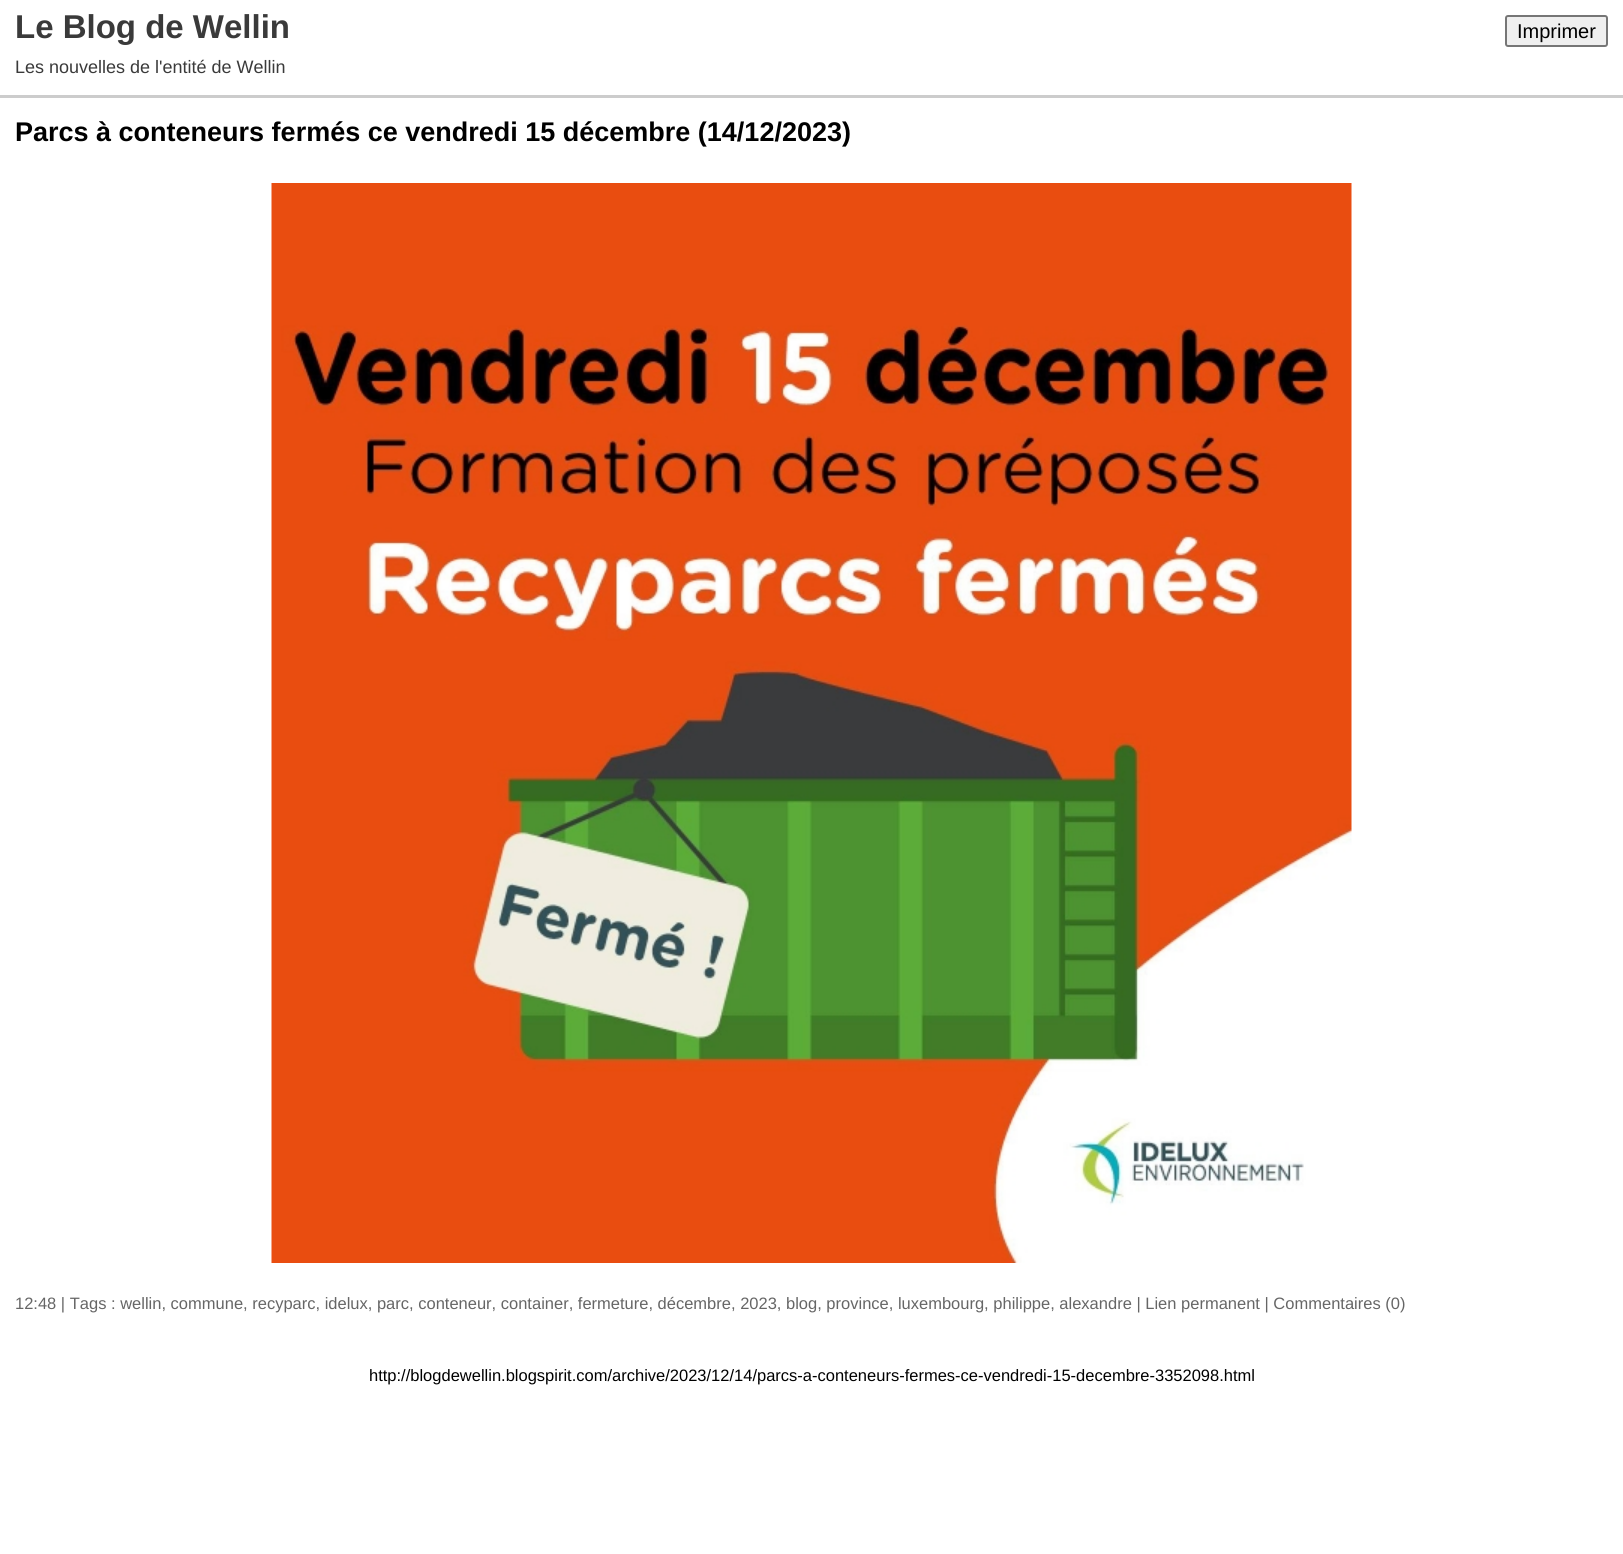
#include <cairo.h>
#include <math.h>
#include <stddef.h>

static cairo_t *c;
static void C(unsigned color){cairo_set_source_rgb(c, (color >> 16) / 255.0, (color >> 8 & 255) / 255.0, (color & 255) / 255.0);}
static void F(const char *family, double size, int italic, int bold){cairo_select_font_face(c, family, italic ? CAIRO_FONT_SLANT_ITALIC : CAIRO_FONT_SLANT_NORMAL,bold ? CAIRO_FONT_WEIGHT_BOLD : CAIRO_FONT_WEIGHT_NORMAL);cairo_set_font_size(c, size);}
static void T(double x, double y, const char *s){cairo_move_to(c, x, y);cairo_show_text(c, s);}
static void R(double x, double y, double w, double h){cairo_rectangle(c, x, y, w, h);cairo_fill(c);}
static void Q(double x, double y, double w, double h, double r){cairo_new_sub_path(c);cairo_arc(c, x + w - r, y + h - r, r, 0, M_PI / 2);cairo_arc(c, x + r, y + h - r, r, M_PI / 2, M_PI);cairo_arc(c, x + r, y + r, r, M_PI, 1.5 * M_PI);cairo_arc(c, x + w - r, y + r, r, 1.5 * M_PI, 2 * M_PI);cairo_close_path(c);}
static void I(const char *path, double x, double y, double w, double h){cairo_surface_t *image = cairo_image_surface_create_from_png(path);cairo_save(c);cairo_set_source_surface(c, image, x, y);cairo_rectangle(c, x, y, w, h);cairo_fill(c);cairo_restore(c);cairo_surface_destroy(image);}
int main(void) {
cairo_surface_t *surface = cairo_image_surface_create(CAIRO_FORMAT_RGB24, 1623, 1554);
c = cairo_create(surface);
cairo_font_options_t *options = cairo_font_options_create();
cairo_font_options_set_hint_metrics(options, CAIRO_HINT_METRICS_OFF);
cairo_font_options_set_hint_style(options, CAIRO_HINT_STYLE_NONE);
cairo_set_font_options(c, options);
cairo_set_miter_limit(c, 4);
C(0xffffff);
cairo_paint(c);
C(0xcccccc);
R(0,95,1623,3);
F("Liberation Sans",33,0,1);
C(0x3a3a3a);
T(15,38,"Le Blog de Wellin");
C(0xefefef);
Q(1506,16,101,30,2);
cairo_fill_preserve(c);
C(0x767676);
cairo_stroke(c);
F("Liberation Sans",20,0,0);
C(0x000000);
T(1517,38,"Imprimer");
F("Liberation Sans",18,0,0);
C(0x3a3a3a);
T(15,73,"Les nouvelles de l'entité de Wellin");
F("Liberation Sans",27,0,1);
C(0x000000);
T(15,141,"Parcs à conteneurs fermés ce vendredi 15 décembre (14/12/2023)");
I("1.png",271,183,1081,1080);
F("Liberation Sans",16.5,0,0);
C(0x666666);
T(15,1309,"12:48 | Tags : wellin, commune, recyparc, idelux, parc, conteneur, container, fermeture, décembre, 2023, blog, province, luxembourg, philippe, alexandre | Lien permanent | Commentaires (0)");
C(0x000000);
T(369,1381,"http://blogdewellin.blogspirit.com/archive/2023/12/14/parcs-a-conteneurs-fermes-ce-vendredi-15-decembre-3352098.html");
cairo_surface_write_to_png(surface, "o.png");
cairo_font_options_destroy(options);
cairo_destroy(c);
cairo_surface_destroy(surface);
return 0;
}
